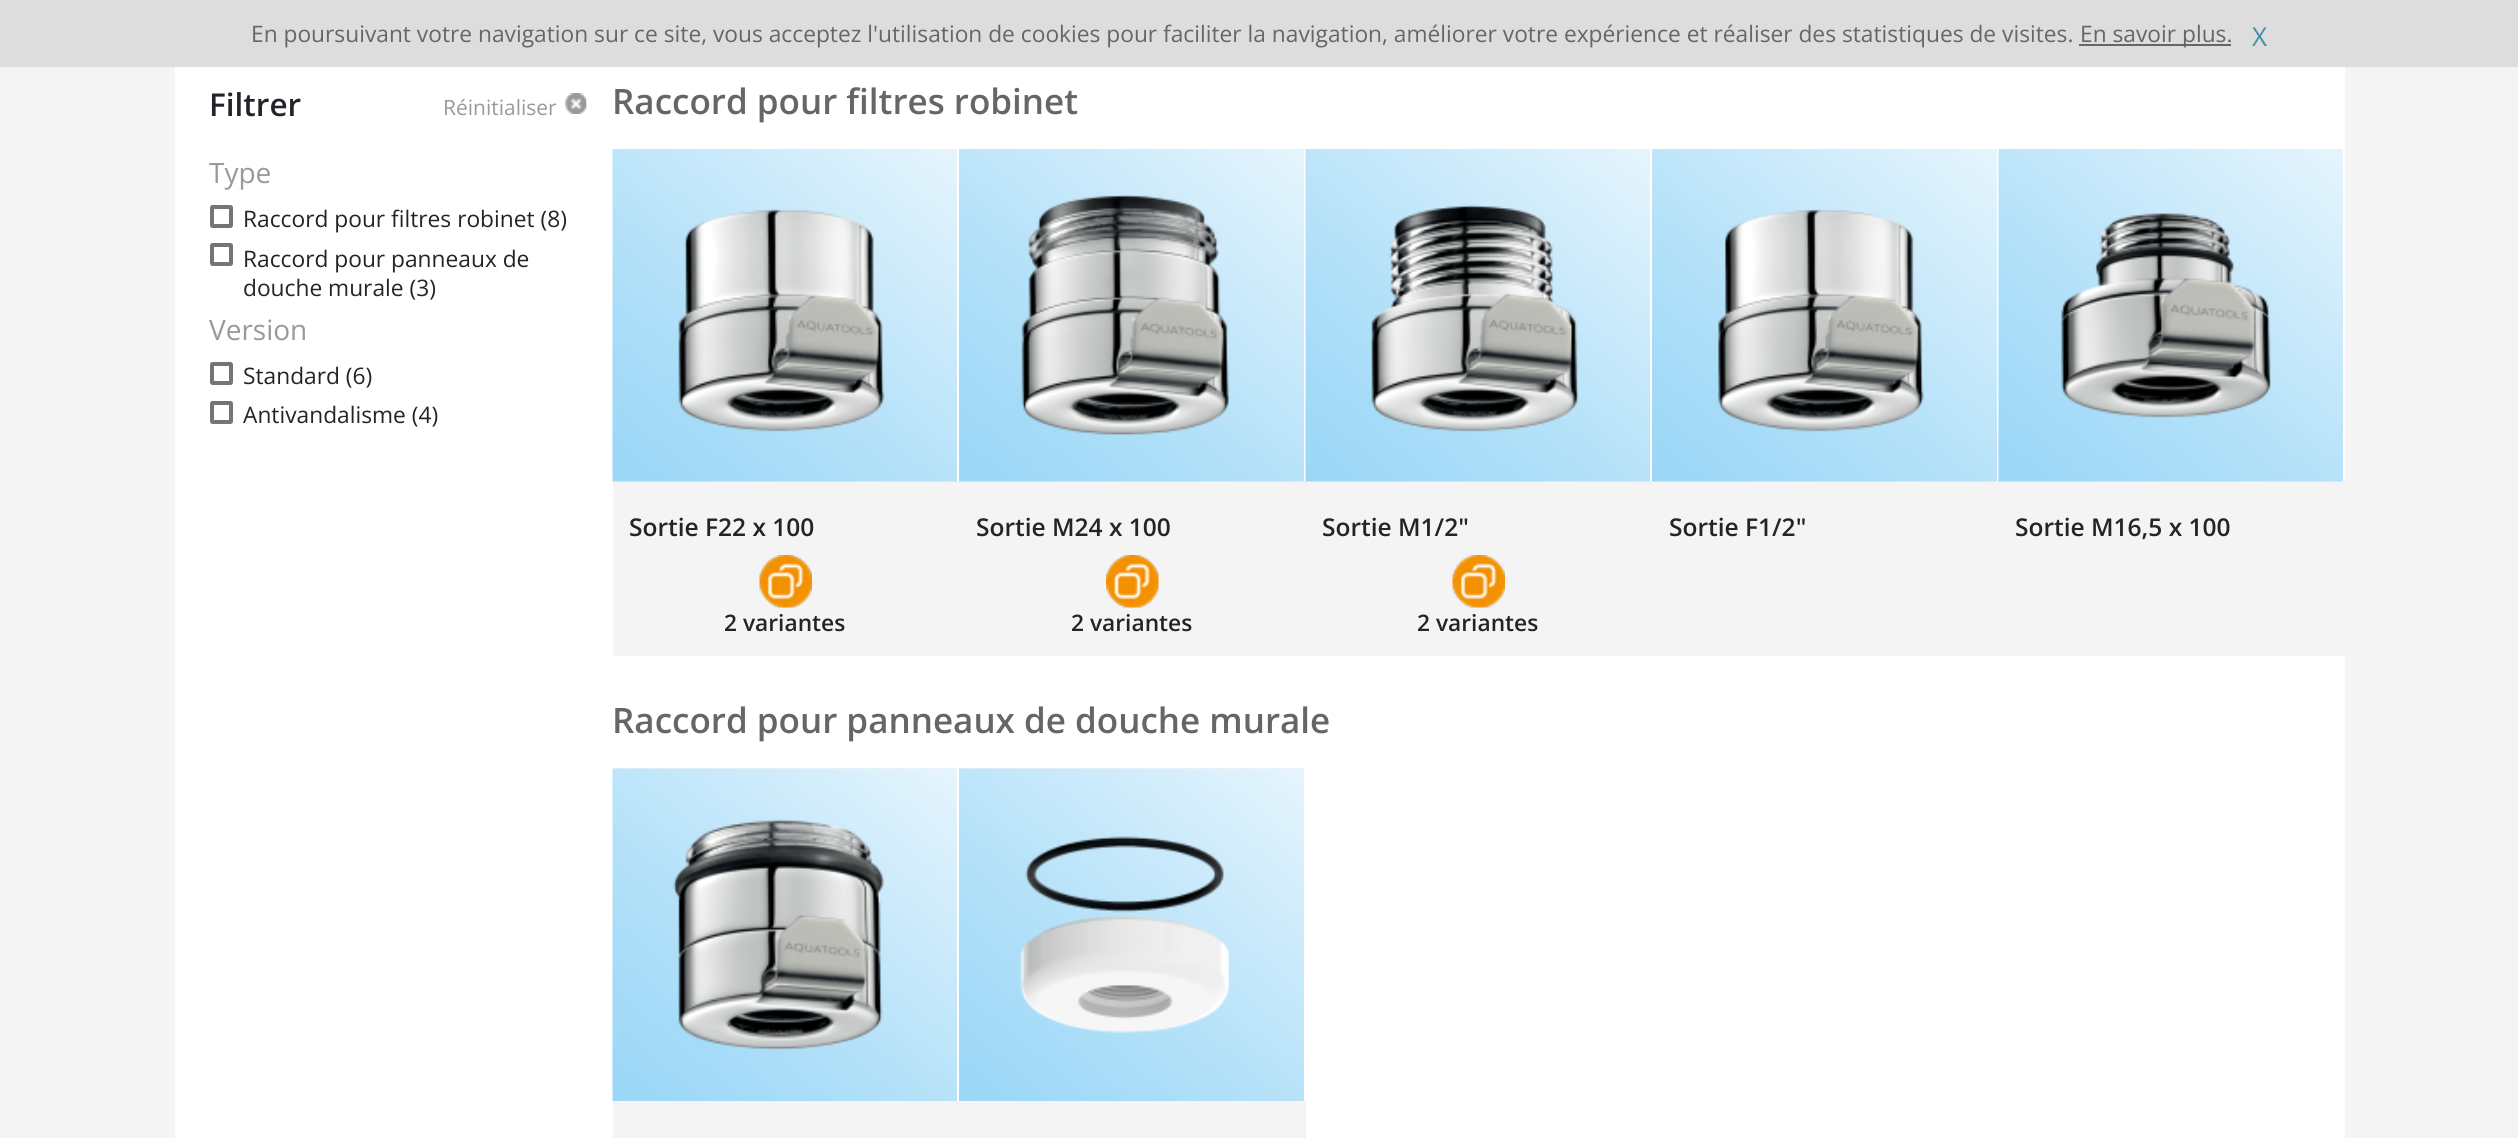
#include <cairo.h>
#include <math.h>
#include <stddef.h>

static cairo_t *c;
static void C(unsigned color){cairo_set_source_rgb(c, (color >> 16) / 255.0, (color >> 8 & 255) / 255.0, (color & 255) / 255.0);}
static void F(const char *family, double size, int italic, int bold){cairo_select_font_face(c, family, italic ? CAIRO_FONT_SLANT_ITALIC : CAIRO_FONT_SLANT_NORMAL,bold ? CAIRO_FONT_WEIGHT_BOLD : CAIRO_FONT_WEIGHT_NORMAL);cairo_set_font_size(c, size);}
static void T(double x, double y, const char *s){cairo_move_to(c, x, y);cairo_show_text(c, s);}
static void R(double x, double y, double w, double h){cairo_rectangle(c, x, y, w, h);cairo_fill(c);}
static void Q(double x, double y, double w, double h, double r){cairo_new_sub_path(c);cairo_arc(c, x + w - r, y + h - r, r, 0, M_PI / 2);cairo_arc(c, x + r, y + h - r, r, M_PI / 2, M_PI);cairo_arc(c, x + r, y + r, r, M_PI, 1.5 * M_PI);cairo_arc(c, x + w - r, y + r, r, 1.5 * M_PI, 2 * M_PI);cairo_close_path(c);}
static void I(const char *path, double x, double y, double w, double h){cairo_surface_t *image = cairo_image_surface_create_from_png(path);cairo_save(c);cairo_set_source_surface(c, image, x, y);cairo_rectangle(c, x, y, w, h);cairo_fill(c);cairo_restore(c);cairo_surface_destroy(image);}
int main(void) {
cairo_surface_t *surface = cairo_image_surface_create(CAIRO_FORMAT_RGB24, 2518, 1138);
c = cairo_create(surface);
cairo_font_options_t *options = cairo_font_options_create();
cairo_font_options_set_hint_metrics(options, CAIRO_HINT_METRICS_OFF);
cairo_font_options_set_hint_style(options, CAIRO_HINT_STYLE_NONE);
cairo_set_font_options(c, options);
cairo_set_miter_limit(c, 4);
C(0xf4f4f4);
cairo_paint(c);
C(0xdddddd);
R(0,0,2518,67);
F("Open Sans",22.75,0,0);
C(0x666666);
T(251,42,"En poursuivant votre navigation sur ce site, vous acceptez l'utilisation de cookies pour faciliter la navigation, améliorer votre expérience et réaliser des statistiques de visites.");
R(2079,44,152,2);
T(2080,42,"En savoir plus.");
F("Open Sans",26,0,0);
C(0x438fac);
T(2252,46,"X");
C(0xffffff);
R(175,67,438,1071);
F("Open Sans SemiBold",31.5,0,0);
C(0x212529);
T(209,116,"Filtrer");
F("Open Sans",21,0,0);
C(0x999999);
T(443,115,"Réinitialiser");
I("1.png",565,93,22,21);
F("Open Sans",28,0,0);
T(209,183,"Type");
Q(212,207,19,19,.5);
C(0x757575);
cairo_set_line_width(c,4);
cairo_stroke(c);
F("Open Sans",22.75,0,0);
C(0x212529);
T(243,227,"Raccord pour filtres robinet (8)");
Q(212,245,19,19,.5);
C(0x757575);
cairo_stroke(c);
C(0x212529);
T(243,267,"Raccord pour panneaux de");
T(243,296,"douche murale (3)");
F("Open Sans",28,0,0);
C(0x999999);
T(209,340,"Version");
Q(212,364,19,19,.5);
C(0x757575);
cairo_stroke(c);
F("Open Sans",22.75,0,0);
C(0x212529);
T(243,384,"Standard (6)");
Q(212,403,19,19,.5);
C(0x757575);
cairo_stroke(c);
C(0x212529);
T(243,423,"Antivandalisme (4)");
C(0xffffff);
R(613,67,1732,82);
F("Open Sans SemiBold",35,0,0);
C(0x666666);
T(612,114,"Raccord pour filtres robinet");
I("2.png",612,149,347,333);
C(0xffffff);
R(957,149,2,332);
I("3.png",678,209,207,223);
F("Open Sans SemiBold",24.5,0,0);
C(0x212529);
T(629,536,"Sortie F22 x 100");
I("4.png",759,555,53,53);
F("Open Sans SemiBold",22.75,0,0);
T(724,631,"2 variantes");
I("5.png",959,149,347,333);
C(0xffffff);
R(1304,149,2,332);
I("6.png",1021,194,208,241);
F("Open Sans SemiBold",24.5,0,0);
C(0x212529);
T(976,536,"Sortie M24 x 100");
I("7.png",1106,555,53,53);
F("Open Sans SemiBold",22.75,0,0);
T(1071,631,"2 variantes");
I("8.png",1305,149,347,333);
C(0xffffff);
R(1650,149,2,332);
I("9.png",1371,204,208,228);
F("Open Sans SemiBold",24.5,0,0);
C(0x212529);
T(1322,536,"Sortie M1/2\"");
I("10.png",1452,555,53,53);
F("Open Sans SemiBold",22.75,0,0);
T(1417,631,"2 variantes");
I("5.png",1652,149,347,333);
C(0xffffff);
R(1997,149,2,332);
I("11.png",1718,209,206,223);
F("Open Sans SemiBold",24.5,0,0);
C(0x212529);
T(1669,536,"Sortie F1/2\"");
I("8.png",1998,149,347,333);
C(0xffffff);
R(2343,149,2,332);
I("12.png",2061,213,211,205);
C(0x212529);
T(2015,536,"Sortie M16,5 x 100");
C(0xffffff);
R(613,656,1732,112);
F("Open Sans SemiBold",35,0,0);
C(0x666666);
T(612,733,"Raccord pour panneaux de douche murale");
C(0xffffff);
R(1306,768,1039,370);
I("13.png",612,768,345,333);
R(957,768,2,333);
I("14.png",673,819,212,231);
I("15.png",959,768,345,333);
R(1304,768,2,333);
I("16.png",1020,836,210,198);
cairo_surface_write_to_png(surface, "o.png");
cairo_font_options_destroy(options);
cairo_destroy(c);
cairo_surface_destroy(surface);
return 0;
}
